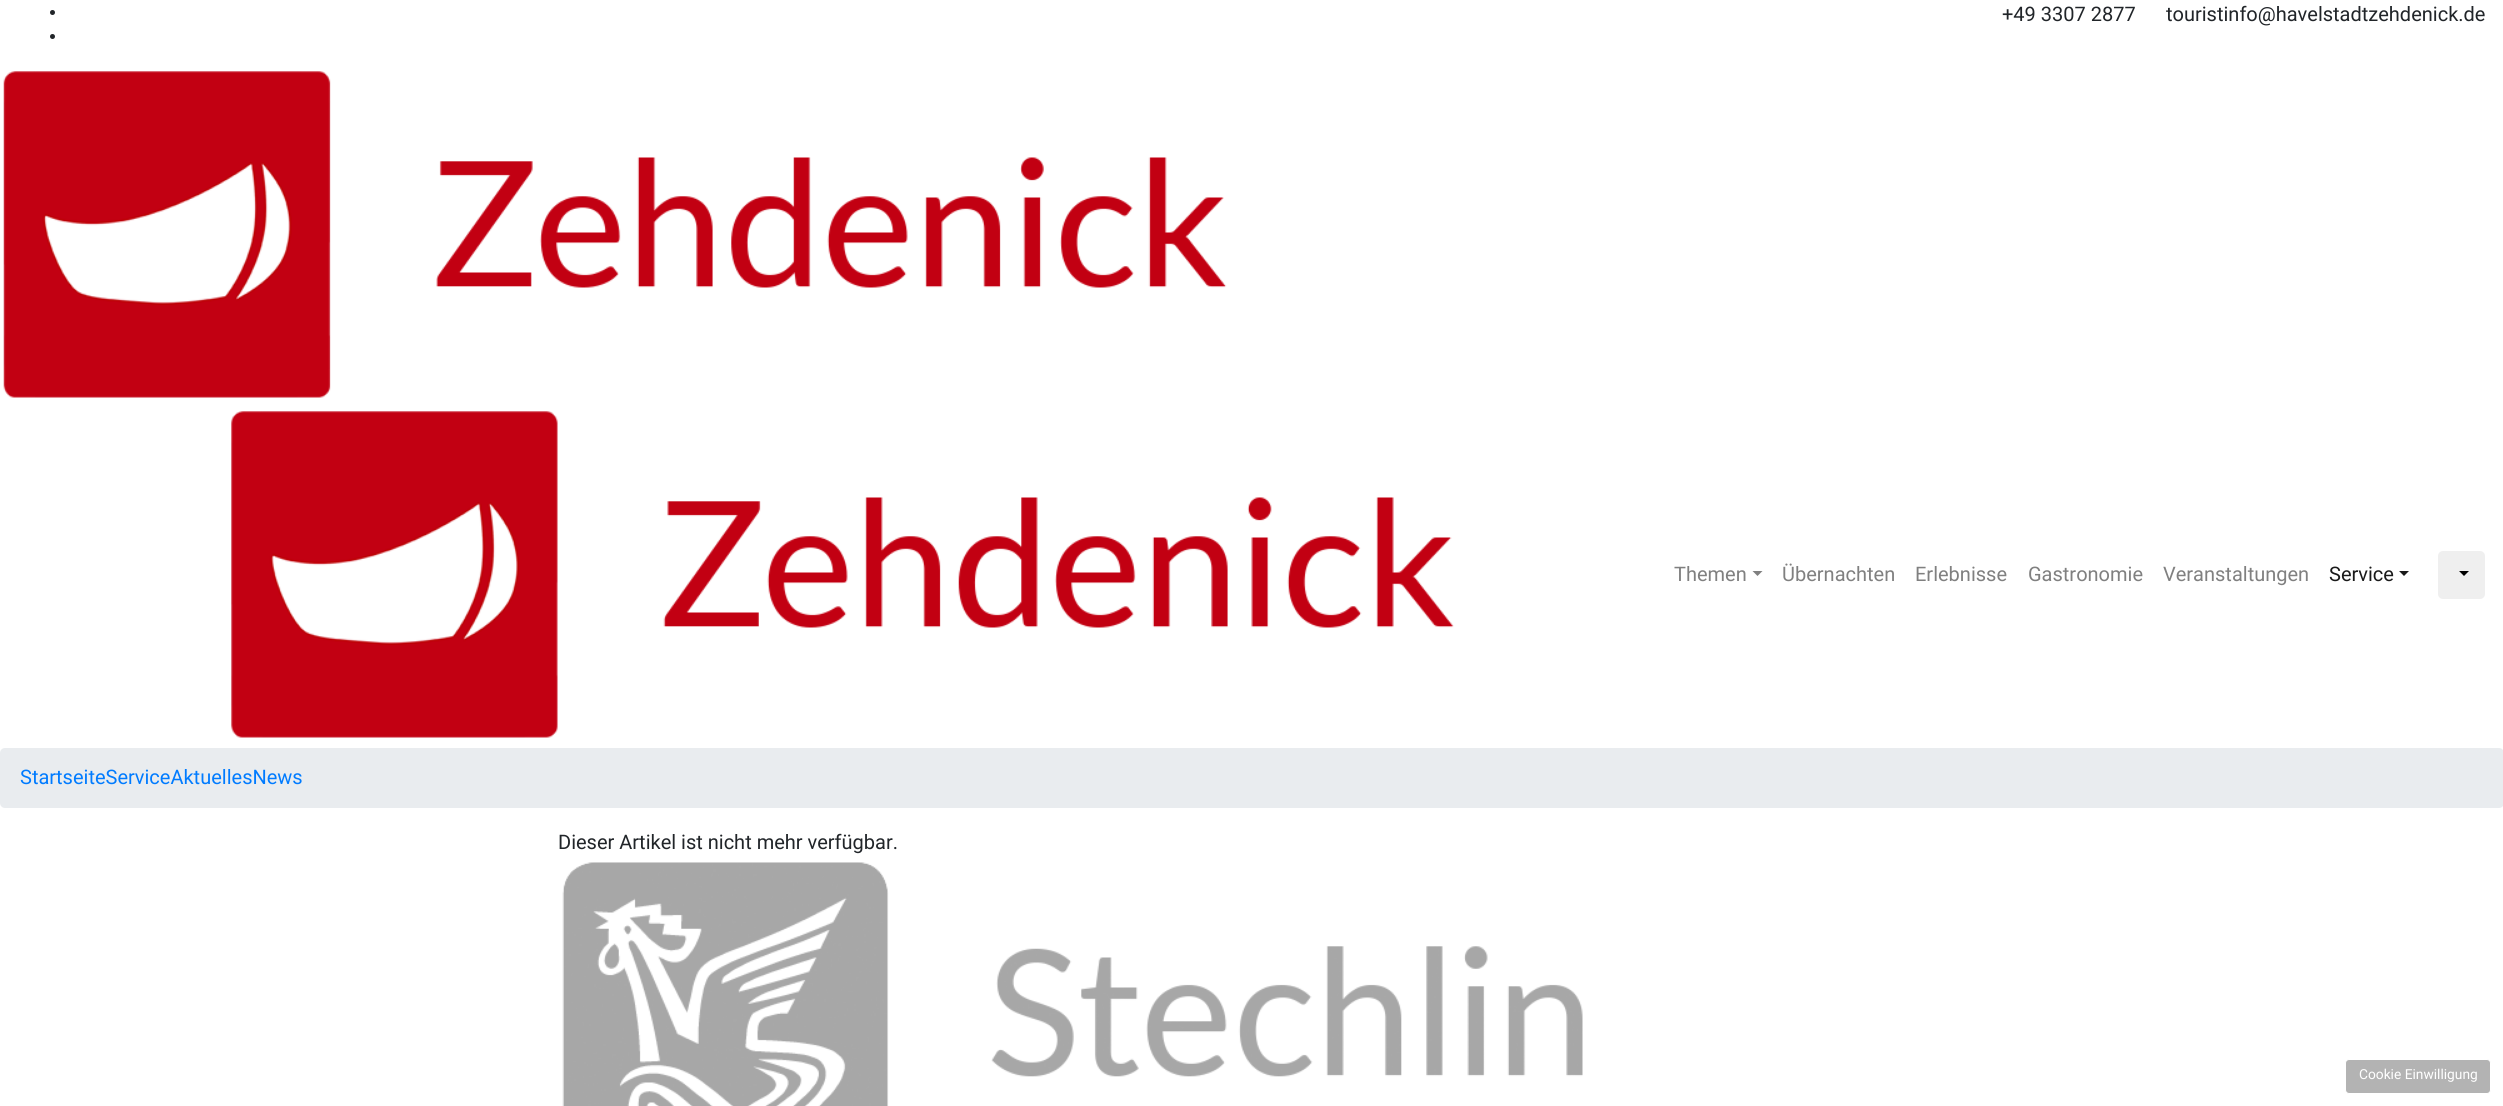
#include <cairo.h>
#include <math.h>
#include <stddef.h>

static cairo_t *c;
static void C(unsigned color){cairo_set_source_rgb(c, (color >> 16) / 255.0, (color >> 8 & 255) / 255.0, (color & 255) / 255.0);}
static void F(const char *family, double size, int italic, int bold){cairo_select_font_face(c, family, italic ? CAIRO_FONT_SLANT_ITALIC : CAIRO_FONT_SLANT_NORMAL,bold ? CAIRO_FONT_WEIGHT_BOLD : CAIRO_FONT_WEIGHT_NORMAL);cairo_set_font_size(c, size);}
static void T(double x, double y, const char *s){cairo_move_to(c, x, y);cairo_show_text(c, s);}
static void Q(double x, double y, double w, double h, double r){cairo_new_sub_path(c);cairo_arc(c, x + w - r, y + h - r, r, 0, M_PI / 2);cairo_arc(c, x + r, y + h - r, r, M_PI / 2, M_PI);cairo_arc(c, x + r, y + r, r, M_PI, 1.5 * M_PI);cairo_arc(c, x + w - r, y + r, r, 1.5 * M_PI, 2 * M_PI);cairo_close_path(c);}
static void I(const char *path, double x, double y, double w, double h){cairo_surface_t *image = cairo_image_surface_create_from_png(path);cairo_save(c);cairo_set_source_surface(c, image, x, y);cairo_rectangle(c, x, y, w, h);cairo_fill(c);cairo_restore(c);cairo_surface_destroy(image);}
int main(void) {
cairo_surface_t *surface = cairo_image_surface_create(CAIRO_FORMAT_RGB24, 2503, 1106);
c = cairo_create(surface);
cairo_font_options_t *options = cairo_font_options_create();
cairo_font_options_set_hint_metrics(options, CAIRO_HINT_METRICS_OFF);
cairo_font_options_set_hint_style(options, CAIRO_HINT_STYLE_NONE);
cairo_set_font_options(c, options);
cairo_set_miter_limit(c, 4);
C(0xffffff);
cairo_paint(c);
C(0x212529);
cairo_arc(c,52.5,12.5,2.5,0,2 * M_PI);
cairo_fill(c);
cairo_arc(c,52.5,36.5,2.5,0,2 * M_PI);
cairo_fill(c);
F("Roboto",20,0,0);
T(2002,21,"+49 3307 2877");
T(2166,21,"touristinfo@havelstadtzehdenick.de");
I("1.png",3,71,1224,327);
I("2.png",231,411,1223,327);
C(0x808080);
T(1674,581,"Themen");
cairo_new_path(c);
cairo_move_to(c,1752.5,571);
cairo_line_to(c,1762.5,571);
cairo_line_to(c,1757.5,576);
cairo_close_path(c);
cairo_fill(c);
T(1782,581,"Übernachten");
T(1915,581,"Erlebnisse");
T(2028,581,"Gastronomie");
T(2163,581,"Veranstaltungen");
C(0x1a1a1a);
T(2329,581,"Service");
cairo_new_path(c);
cairo_move_to(c,2399,571);
cairo_line_to(c,2409,571);
cairo_line_to(c,2404,576);
cairo_close_path(c);
cairo_fill(c);
C(0xefefef);
Q(2438,551,47,48,5);
cairo_fill(c);
C(0x000000);
cairo_new_path(c);
cairo_move_to(c,2459,571);
cairo_line_to(c,2469,571);
cairo_line_to(c,2464,576);
cairo_close_path(c);
cairo_fill(c);
C(0xe9ecef);
Q(0,748,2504,60,5);
cairo_fill(c);
C(0x007bff);
T(20,784,"StartseiteServiceAktuellesNews");
C(0x212529);
T(558,849,"Dieser Artikel ist nicht mehr verfügbar.");
I("3.png",562,862,1021,244);
C(0xb3b3b3);
Q(2345.5,1059.5,145,34,3.5);
cairo_fill_preserve(c);
C(0xffffff);
cairo_set_line_width(c,1);
cairo_stroke(c);
F("Roboto",13.75,0,0);
T(2359,1079,"Cookie Einwilligung");
cairo_surface_write_to_png(surface, "o.png");
cairo_font_options_destroy(options);
cairo_destroy(c);
cairo_surface_destroy(surface);
return 0;
}
